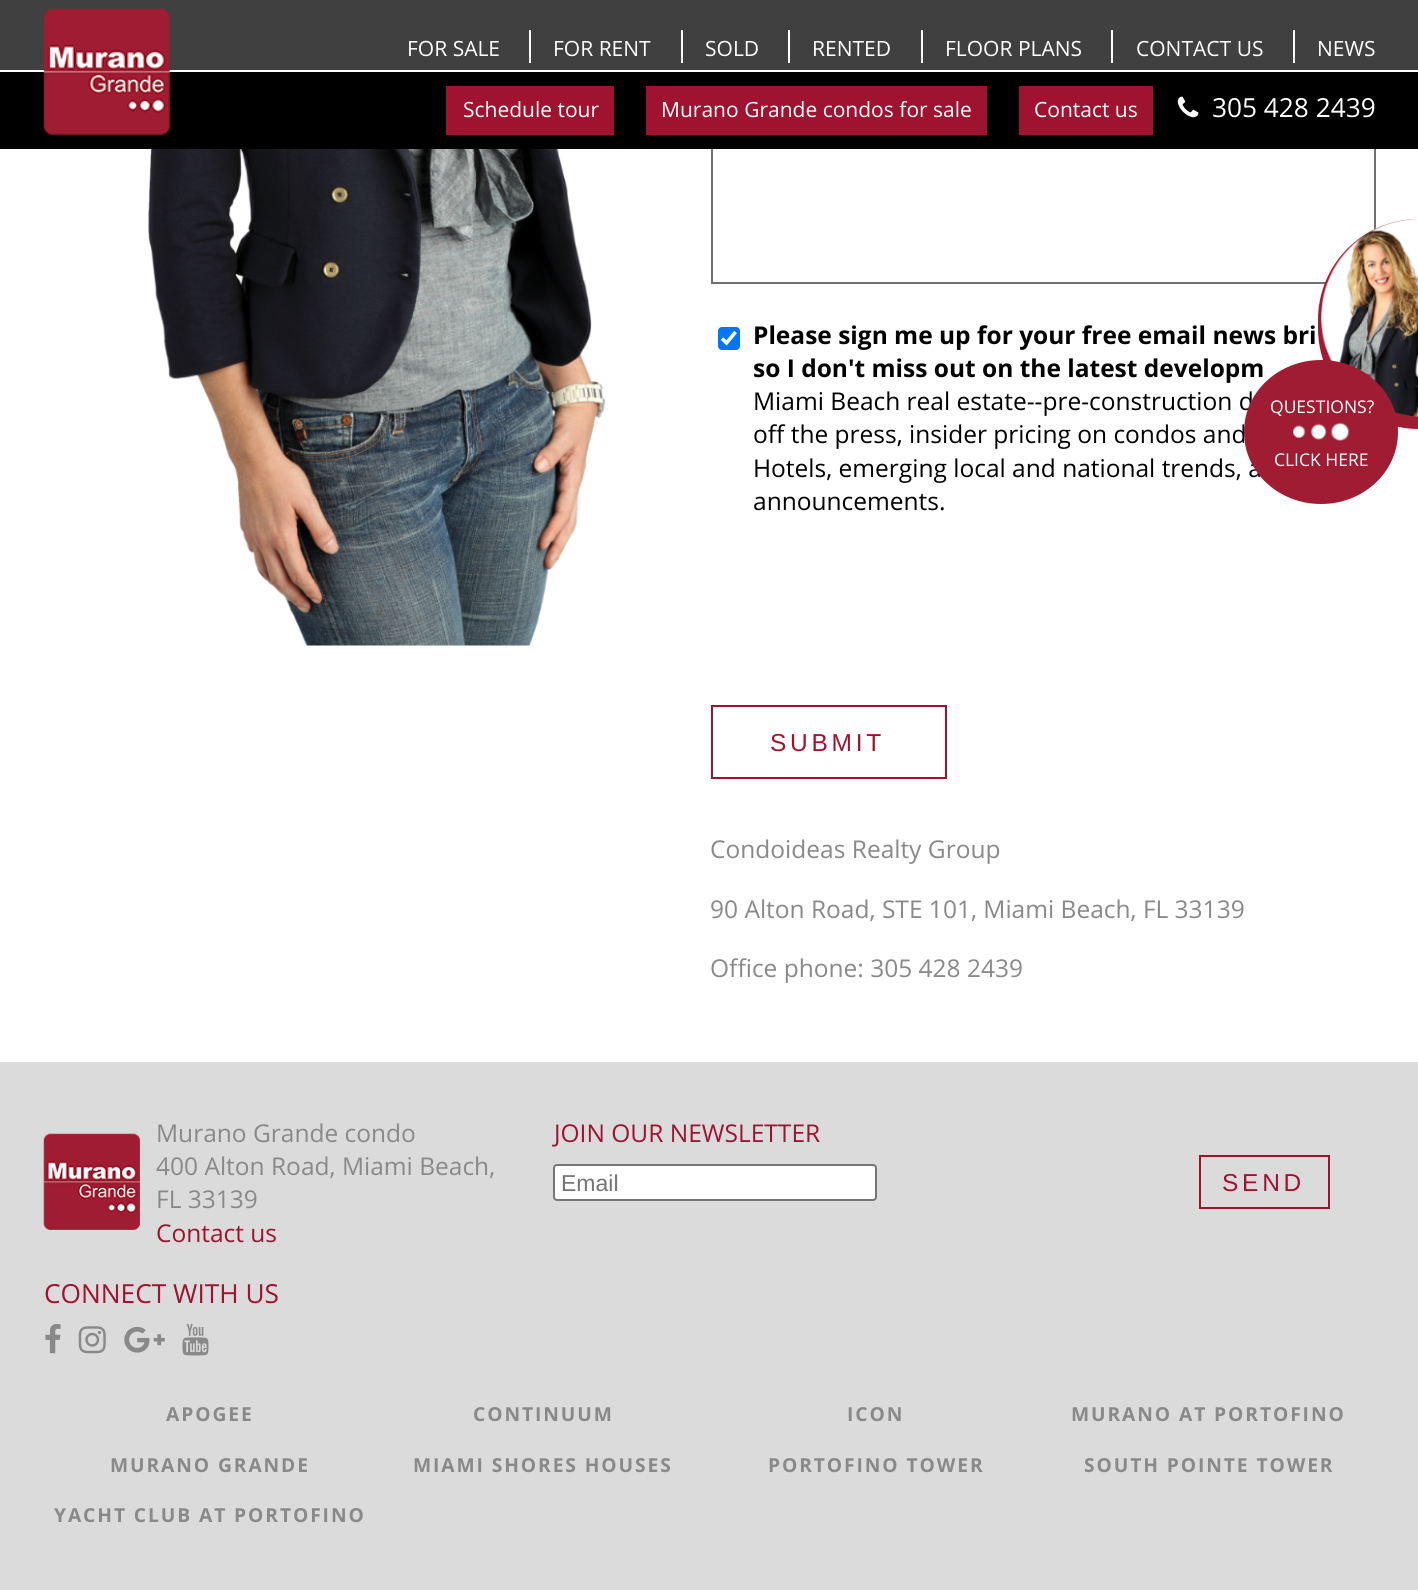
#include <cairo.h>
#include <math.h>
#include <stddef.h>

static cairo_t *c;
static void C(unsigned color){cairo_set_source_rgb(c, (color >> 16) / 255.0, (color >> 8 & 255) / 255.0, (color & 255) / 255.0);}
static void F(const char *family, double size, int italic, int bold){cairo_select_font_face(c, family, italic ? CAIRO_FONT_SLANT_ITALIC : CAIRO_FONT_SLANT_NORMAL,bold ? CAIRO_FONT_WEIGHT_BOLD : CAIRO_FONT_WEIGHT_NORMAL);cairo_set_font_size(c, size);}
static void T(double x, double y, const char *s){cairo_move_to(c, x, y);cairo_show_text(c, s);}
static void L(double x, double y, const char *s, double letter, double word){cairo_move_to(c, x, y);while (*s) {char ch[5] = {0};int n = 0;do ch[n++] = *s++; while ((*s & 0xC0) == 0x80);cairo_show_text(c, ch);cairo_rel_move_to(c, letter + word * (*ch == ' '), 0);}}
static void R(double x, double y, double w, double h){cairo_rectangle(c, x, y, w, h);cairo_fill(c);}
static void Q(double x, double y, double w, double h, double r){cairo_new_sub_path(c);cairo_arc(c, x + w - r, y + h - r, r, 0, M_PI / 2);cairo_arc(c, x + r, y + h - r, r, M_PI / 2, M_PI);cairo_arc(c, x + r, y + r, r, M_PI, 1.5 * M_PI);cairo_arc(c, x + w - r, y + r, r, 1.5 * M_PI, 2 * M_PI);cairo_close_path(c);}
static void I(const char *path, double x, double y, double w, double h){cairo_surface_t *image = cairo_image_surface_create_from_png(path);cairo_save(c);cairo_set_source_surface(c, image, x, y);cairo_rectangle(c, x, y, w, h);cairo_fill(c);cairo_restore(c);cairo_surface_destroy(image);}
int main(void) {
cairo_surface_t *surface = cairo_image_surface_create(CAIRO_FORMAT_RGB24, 1418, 1590);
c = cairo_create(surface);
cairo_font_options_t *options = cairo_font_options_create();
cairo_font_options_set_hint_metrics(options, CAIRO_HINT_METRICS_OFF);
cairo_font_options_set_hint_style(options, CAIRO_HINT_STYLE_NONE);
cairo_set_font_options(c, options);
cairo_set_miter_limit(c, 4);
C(0xffffff);
cairo_paint(c);
cairo_rectangle(c,712,-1,663,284);
C(0x707070);
cairo_stroke(c);
C(0x404040);
R(0,0,1418,70);
C(0xffffff);
R(711,70,665,2);
C(0x000000);
R(0,72,1418,77);
I("1.png",43,8,127,127);
F("Open Sans",21,0,0);
C(0xffffff);
T(407,56,"FOR SALE");
R(529,30,2,33);
T(553,56,"FOR RENT");
R(681,30,2,33);
T(705,56,"SOLD");
R(788,30,2,33);
T(812,56,"RENTED");
R(921,30,2,33);
T(945,56,"FLOOR PLANS");
R(1111,30,2,33);
T(1136,56,"CONTACT US");
R(1293,30,2,33);
T(1317,56,"NEWS");
C(0x9f1230);
R(446,86,168,49);
C(0xffffff);
T(463,117,"Schedule tour");
C(0x9f1230);
R(646,86,341,49);
C(0xffffff);
T(661,117,"Murano Grande condos for sale");
C(0x9f1230);
R(1019,86,134,49);
C(0xffffff);
T(1034,117,"Contact us");
I("2.png",1177,96,22,22);
F("Open Sans",26.25,0,0);
T(1212,117,"305 428 2439");
I("3.png",148,149,458,497);
C(0x0075ff);
Q(718,327,22,23,4);
cairo_fill(c);
cairo_new_path(c);
cairo_move_to(c,722,338.5);
cairo_line_to(c,726.5,343);
cairo_line_to(c,735.5,332);
C(0xffffff);
cairo_set_line_width(c,3.6);
cairo_stroke(c);
F("Open Sans",24.5,0,1);
C(0x000000);
T(753,344,"Please sign me up for your free email news bri");
T(753,377,"so I don't miss out on the latest developm");
F("Open Sans",24.5,0,0);
T(753,410,"Miami Beach real estate--pre-construction d");
T(753,443,"off the press, insider pricing on condos and");
T(753,477,"Hotels, emerging local and national trends, a");
T(753,510,"announcements.");
cairo_rectangle(c,712,706,234,72);
C(0x9f1230);
cairo_set_line_width(c,2);
cairo_stroke(c);
F("Liberation Sans",24.5,0,0);
L(770,751,"SUBMIT",3.75,0);
F("Open Sans",24.5,0,0);
C(0x898989);
T(710,858,"Condoideas Realty Group");
T(710,918,"90 Alton Road, STE 101, Miami Beach, FL 33139");
T(710,977,"Office phone: 305 428 2439");
C(0xdbdbdb);
R(0,1062,1418,528);
I("4.png",43,1133,97,97);
C(0x898989);
T(156,1142,"Murano Grande condo");
T(156,1175,"400 Alton Road, Miami Beach,");
T(156,1208,"FL 33139");
C(0x9f1230);
T(156,1242,"Contact us");
T(554,1142,"JOIN OUR NEWSLETTER");
C(0xffffff);
Q(554,1165,322,35,3);
cairo_fill_preserve(c);
C(0x767676);
cairo_stroke(c);
F("Liberation Sans",23,0,0);
C(0x757575);
T(561,1191,"Email");
cairo_rectangle(c,1200,1156,129,52);
C(0x9f1230);
cairo_stroke(c);
F("Liberation Sans",24.5,0,0);
L(1222,1191,"SEND",3.75,0);
F("Open Sans",26.25,0,0);
T(44,1303,"CONNECT WITH US");
I("5.png",45,1324,16,30);
I("6.png",78,1326,28,28);
I("7.png",124,1326,41,27);
I("8.png",182,1324,27,32);
F("Open Sans",19.25,0,1);
C(0x898989);
L(166,1421,"APOGEE",1.9,0);
L(473,1421,"CONTINUUM",1.9,0);
L(847,1421,"ICON",1.9,0);
L(1071,1421,"MURANO AT PORTOFINO",1.9,0);
L(110,1472,"MURANO GRANDE",1.9,0);
L(413,1472,"MIAMI SHORES HOUSES",1.9,0);
L(768,1472,"PORTOFINO TOWER",1.9,0);
L(1084,1472,"SOUTH POINTE TOWER",1.9,0);
L(54,1522,"YACHT CLUB AT PORTOFINO",1.9,0);
C(0xa01c32);
cairo_new_path(c);
cairo_move_to(c,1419,219);
cairo_line_to(c,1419,429);
cairo_curve_to(c,1363,429,1318,384,1318,328);
cairo_line_to(c,1318,320);
cairo_curve_to(c,1318,264,1363,219,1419,219);
cairo_close_path(c);
cairo_fill(c);
I("9.png",1321,219,97,198);
cairo_new_path(c);
cairo_move_to(c,1321,360);
cairo_curve_to(c,1363.5,360,1398,392,1398,432);
cairo_curve_to(c,1398,472,1363.5,504,1321,504);
cairo_curve_to(c,1278.5,504,1244,472,1244,432);
cairo_curve_to(c,1244,392,1278.5,360,1321,360);
cairo_close_path(c);
cairo_fill(c);
F("Open Sans",17.5,0,0);
C(0xffffff);
T(1270,413,"QUESTIONS?");
I("10.png",1293,422,57,19);
T(1274,466,"CLICK HERE");
cairo_surface_write_to_png(surface, "o.png");
cairo_font_options_destroy(options);
cairo_destroy(c);
cairo_surface_destroy(surface);
return 0;
}
